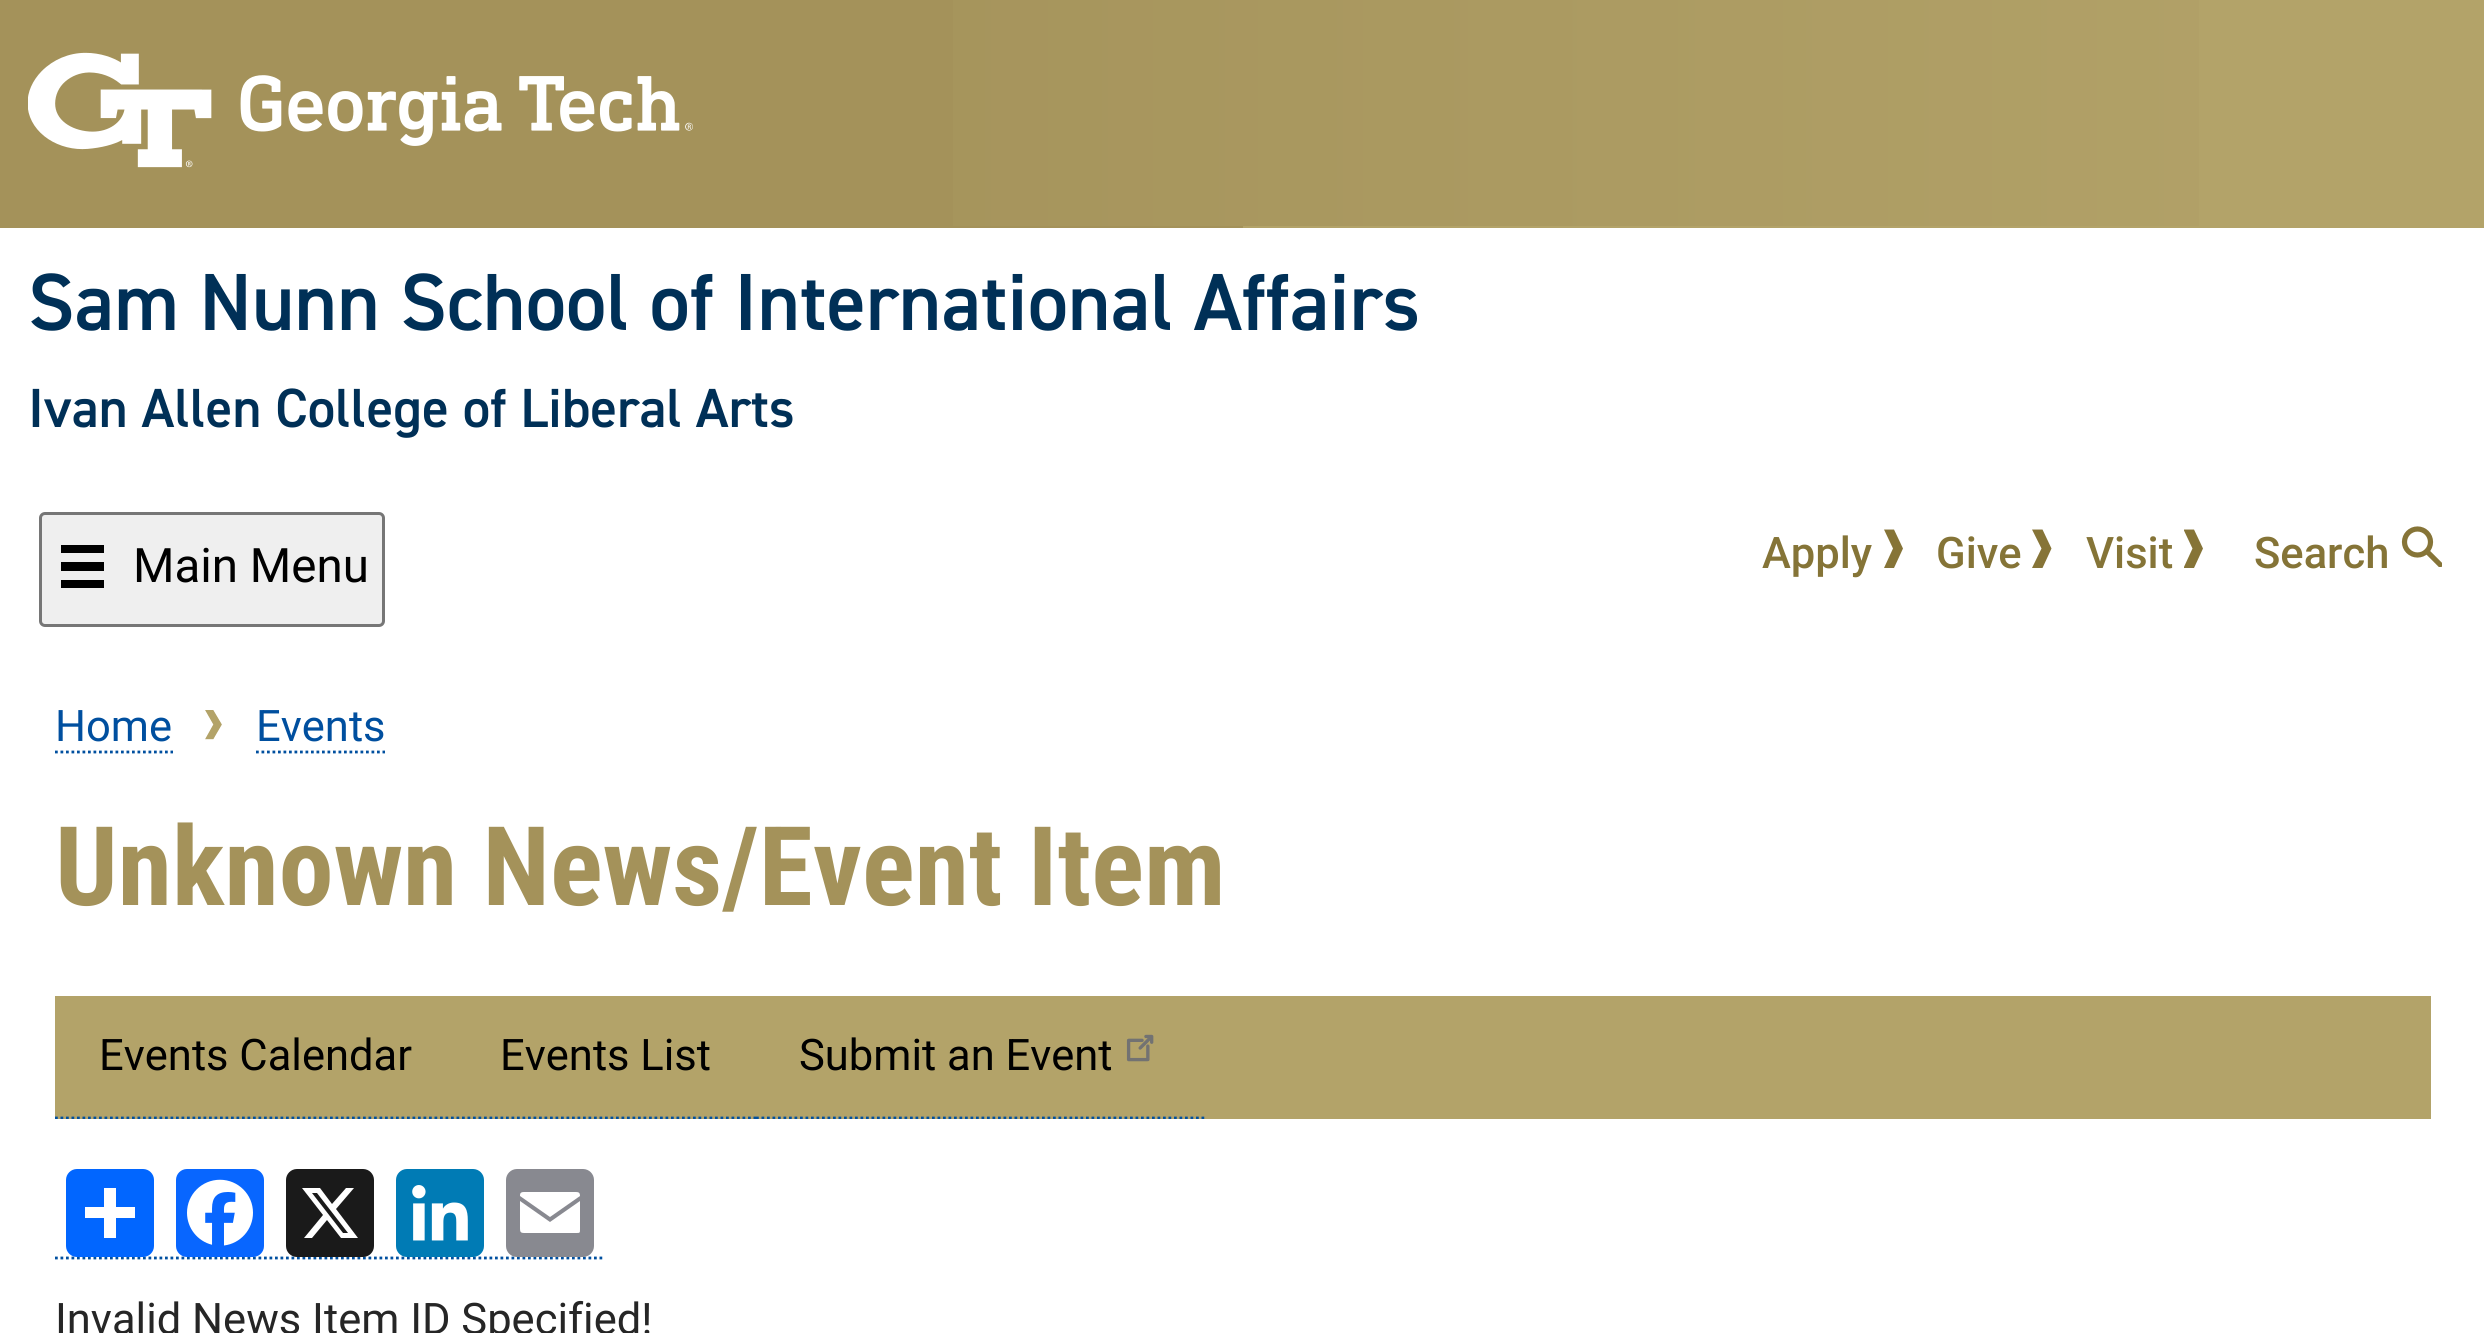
#include <cairo.h>
#include <math.h>
#include <stddef.h>

static cairo_t *c;
static void C(unsigned color){cairo_set_source_rgb(c, (color >> 16) / 255.0, (color >> 8 & 255) / 255.0, (color & 255) / 255.0);}
static void F(const char *family, double size, int italic, int bold){cairo_select_font_face(c, family, italic ? CAIRO_FONT_SLANT_ITALIC : CAIRO_FONT_SLANT_NORMAL,bold ? CAIRO_FONT_WEIGHT_BOLD : CAIRO_FONT_WEIGHT_NORMAL);cairo_set_font_size(c, size);}
static void T(double x, double y, const char *s){cairo_move_to(c, x, y);cairo_show_text(c, s);}
static void R(double x, double y, double w, double h){cairo_rectangle(c, x, y, w, h);cairo_fill(c);}
static void Q(double x, double y, double w, double h, double r){cairo_new_sub_path(c);cairo_arc(c, x + w - r, y + h - r, r, 0, M_PI / 2);cairo_arc(c, x + r, y + h - r, r, M_PI / 2, M_PI);cairo_arc(c, x + r, y + r, r, M_PI, 1.5 * M_PI);cairo_arc(c, x + w - r, y + r, r, 1.5 * M_PI, 2 * M_PI);cairo_close_path(c);}
static void I(const char *path, double x, double y, double w, double h){cairo_surface_t *image = cairo_image_surface_create_from_png(path);cairo_save(c);cairo_set_source_surface(c, image, x, y);cairo_rectangle(c, x, y, w, h);cairo_fill(c);cairo_restore(c);cairo_surface_destroy(image);}
int main(void) {
cairo_surface_t *surface = cairo_image_surface_create(CAIRO_FORMAT_RGB24, 2484, 1333);
c = cairo_create(surface);
cairo_font_options_t *options = cairo_font_options_create();
cairo_font_options_set_hint_metrics(options, CAIRO_HINT_METRICS_OFF);
cairo_font_options_set_hint_style(options, CAIRO_HINT_STYLE_NONE);
cairo_set_font_options(c, options);
cairo_set_miter_limit(c, 4);
cairo_pattern_t *gradient;
C(0xffffff);
cairo_paint(c);
C(0xa4925a);
R(0,0,1243,228);
C(0xb3a369);
R(1243,0,1241,228);
I("1.png",28,52,665,116);
gradient = cairo_pattern_create_linear(693,113,2459,113);
cairo_pattern_add_color_stop_rgba(gradient,0,0.643,0.573,0.353,1);
cairo_pattern_add_color_stop_rgba(gradient,1,0.702,0.639,0.412,1);
cairo_set_source(c,gradient);
cairo_pattern_destroy(gradient);
R(953,0,1246,226);
F("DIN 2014 SemiBold",81.2,0,0);
C(0x003057);
T(28,330,"Sam Nunn School of International Affairs");
F("DIN 2014 SemiBold",55.25,0,0);
T(28,427,"Ivan Allen College of Liberal Arts");
C(0xefefef);
Q(40.5,513.5,343,112,4.5);
cairo_fill_preserve(c);
C(0x767676);
cairo_set_line_width(c,3);
cairo_stroke(c);
C(0x000000);
R(61,545,43,8);
R(61,562,43,9);
R(61,580,43,8);
F("Roboto",47.5,0,0);
T(133,582,"Main Menu");
F("Roboto Medium",43.5,0,0);
C(0x857437);
T(1762,568,"Apply");
C(0x867437);
cairo_new_path(c);
cairo_move_to(c,1884,529.5);
cairo_line_to(c,1894,529.5);
cairo_line_to(c,1903,548.5);
cairo_line_to(c,1894,568);
cairo_line_to(c,1884,568);
cairo_line_to(c,1893,548.5);
cairo_close_path(c);
cairo_fill(c);
C(0x857437);
T(1936,568,"Give");
C(0x867437);
cairo_new_path(c);
cairo_move_to(c,2032,529.5);
cairo_line_to(c,2042.5,529.5);
cairo_line_to(c,2051.5,548.5);
cairo_line_to(c,2042.5,568);
cairo_line_to(c,2032,568);
cairo_line_to(c,2041.5,548.5);
cairo_close_path(c);
cairo_fill(c);
C(0x857437);
T(2086,568,"Visit");
cairo_save(c);
cairo_rectangle(c,2184,528,22,41);
cairo_clip(c);
C(0x867437);
cairo_new_path(c);
cairo_move_to(c,2183.5,529.5);
cairo_line_to(c,2194,529.5);
cairo_line_to(c,2203,548.5);
cairo_line_to(c,2194,568);
cairo_line_to(c,2183.5,568);
cairo_line_to(c,2192.5,548.5);
cairo_close_path(c);
cairo_fill(c);
cairo_restore(c);
T(2254,568,"Search");
cairo_new_path(c);
cairo_arc(c,2417.5,542,13,0,2 * M_PI);
C(0x867437);
cairo_set_line_width(c,5.2);
cairo_stroke(c);
cairo_save(c);
cairo_rectangle(c,2401,525,41,42);
cairo_clip(c);
cairo_new_path(c);
cairo_move_to(c,2425,549.5);
cairo_line_to(c,2442,566.5);
cairo_stroke(c);
cairo_restore(c);
F("Roboto",43.5,0,0);
C(0x004f9f);
T(55,741,"Home");
cairo_new_path(c);
cairo_move_to(c,55,752);
cairo_line_to(c,173,752);
cairo_set_line_width(c,2.8);
cairo_set_dash(c,(double[]){2.75,2.75},2,0);
cairo_stroke(c);
I("2.png",205,710,17,30);
T(256,741,"Events");
cairo_new_path(c);
cairo_move_to(c,256,752);
cairo_line_to(c,385,752);
cairo_stroke(c);
F("Roboto Condensed",110,0,1);
C(0xa4925a);
T(55,905,"Unknown News/Event Item");
C(0xb3a369);
R(55,996,2376,123);
cairo_save(c);
cairo_rectangle(c,55,996,2376,123);
cairo_clip(c);
cairo_new_path(c);
cairo_move_to(c,55,1118);
cairo_line_to(c,456.5,1118);
C(0x004f9f);
cairo_stroke(c);
cairo_restore(c);
F("Roboto",43.5,0,0);
C(0x000000);
T(99,1070,"Events Calendar");
cairo_save(c);
cairo_rectangle(c,55,996,2376,123);
cairo_clip(c);
cairo_new_path(c);
cairo_move_to(c,456.5,1118);
cairo_line_to(c,756,1118);
C(0x004f9f);
cairo_stroke(c);
cairo_restore(c);
T(500,1070,"Events List");
cairo_save(c);
cairo_rectangle(c,55,996,2376,123);
cairo_clip(c);
cairo_new_path(c);
cairo_move_to(c,756,1118);
cairo_line_to(c,1207,1118);
C(0x004f9f);
cairo_stroke(c);
cairo_restore(c);
T(799,1070,"Submit an Event");
I("3.png",1126,1034,28,28);
cairo_new_path(c);
cairo_move_to(c,55,1258);
cairo_line_to(c,165,1258);
C(0x004f9f);
cairo_stroke(c);
C(0x0166ff);
Q(66,1169,88,88,11);
cairo_fill(c);
C(0xffffff);
R(104,1188,12,50);
R(85,1207,50,11);
cairo_new_path(c);
cairo_move_to(c,165,1258);
cairo_line_to(c,275,1258);
C(0x004f9f);
cairo_stroke(c);
C(0x0866ff);
Q(176,1169,88,88,11);
cairo_fill(c);
I("4.png",187,1179,66,67);
cairo_new_path(c);
cairo_move_to(c,275,1258);
cairo_line_to(c,385,1258);
C(0x004f9f);
cairo_stroke(c);
C(0x1a1a1a);
Q(286,1169,88,88,11);
cairo_fill(c);
C(0xffffff);
cairo_new_path(c);
cairo_move_to(c,346,1188);
cairo_line_to(c,354,1188);
cairo_line_to(c,336,1209);
cairo_line_to(c,358,1238);
cairo_line_to(c,341,1238);
cairo_line_to(c,327,1220);
cairo_line_to(c,312,1238);
cairo_line_to(c,304,1238);
cairo_line_to(c,323,1215);
cairo_line_to(c,302,1188);
cairo_line_to(c,320,1188);
cairo_line_to(c,332,1204);
cairo_close_path(c);
cairo_move_to(c,343,1233);
cairo_line_to(c,348,1233);
cairo_line_to(c,317,1193);
cairo_line_to(c,312,1193);
cairo_close_path(c);
cairo_fill(c);
cairo_new_path(c);
cairo_move_to(c,385,1258);
cairo_line_to(c,495,1258);
C(0x004f9f);
cairo_stroke(c);
C(0x007bb5);
Q(396,1169,88,88,11);
cairo_fill(c);
I("5.png",412,1185,56,56);
cairo_new_path(c);
cairo_move_to(c,495,1258);
cairo_line_to(c,605,1258);
C(0x004f9f);
cairo_stroke(c);
C(0x888990);
Q(506,1169,88,88,11);
cairo_fill(c);
C(0xffffff);
cairo_new_path(c);
cairo_move_to(c,580,1229);
cairo_line_to(c,580,1201);
cairo_line_to(c,550,1222);
cairo_line_to(c,520,1201);
cairo_line_to(c,520,1229);
cairo_curve_to(c,520,1232,521,1233,524,1233);
cairo_line_to(c,576,1233);
cairo_curve_to(c,580,1233,580,1233,580,1229);
cairo_move_to(c,580,1196);
cairo_curve_to(c,580,1193,579,1192,576,1192);
cairo_line_to(c,524,1192);
cairo_curve_to(c,520,1192,520,1194,520,1196);
cairo_line_to(c,550,1217);
cairo_close_path(c);
cairo_fill(c);
C(0x262626);
T(55,1334,"Invalid News Item ID Specified!");
cairo_surface_write_to_png(surface, "o.png");
cairo_font_options_destroy(options);
cairo_destroy(c);
cairo_surface_destroy(surface);
return 0;
}
